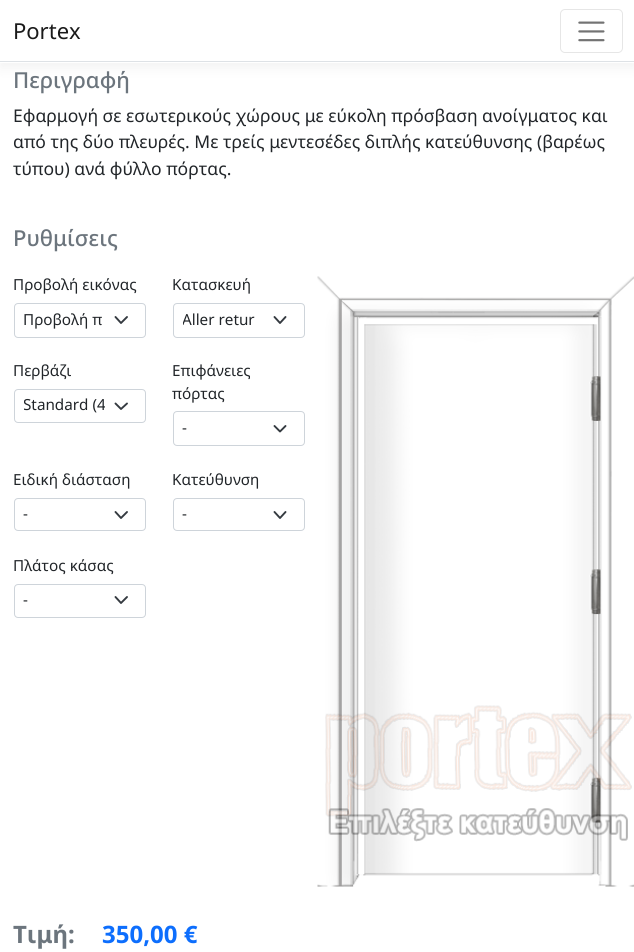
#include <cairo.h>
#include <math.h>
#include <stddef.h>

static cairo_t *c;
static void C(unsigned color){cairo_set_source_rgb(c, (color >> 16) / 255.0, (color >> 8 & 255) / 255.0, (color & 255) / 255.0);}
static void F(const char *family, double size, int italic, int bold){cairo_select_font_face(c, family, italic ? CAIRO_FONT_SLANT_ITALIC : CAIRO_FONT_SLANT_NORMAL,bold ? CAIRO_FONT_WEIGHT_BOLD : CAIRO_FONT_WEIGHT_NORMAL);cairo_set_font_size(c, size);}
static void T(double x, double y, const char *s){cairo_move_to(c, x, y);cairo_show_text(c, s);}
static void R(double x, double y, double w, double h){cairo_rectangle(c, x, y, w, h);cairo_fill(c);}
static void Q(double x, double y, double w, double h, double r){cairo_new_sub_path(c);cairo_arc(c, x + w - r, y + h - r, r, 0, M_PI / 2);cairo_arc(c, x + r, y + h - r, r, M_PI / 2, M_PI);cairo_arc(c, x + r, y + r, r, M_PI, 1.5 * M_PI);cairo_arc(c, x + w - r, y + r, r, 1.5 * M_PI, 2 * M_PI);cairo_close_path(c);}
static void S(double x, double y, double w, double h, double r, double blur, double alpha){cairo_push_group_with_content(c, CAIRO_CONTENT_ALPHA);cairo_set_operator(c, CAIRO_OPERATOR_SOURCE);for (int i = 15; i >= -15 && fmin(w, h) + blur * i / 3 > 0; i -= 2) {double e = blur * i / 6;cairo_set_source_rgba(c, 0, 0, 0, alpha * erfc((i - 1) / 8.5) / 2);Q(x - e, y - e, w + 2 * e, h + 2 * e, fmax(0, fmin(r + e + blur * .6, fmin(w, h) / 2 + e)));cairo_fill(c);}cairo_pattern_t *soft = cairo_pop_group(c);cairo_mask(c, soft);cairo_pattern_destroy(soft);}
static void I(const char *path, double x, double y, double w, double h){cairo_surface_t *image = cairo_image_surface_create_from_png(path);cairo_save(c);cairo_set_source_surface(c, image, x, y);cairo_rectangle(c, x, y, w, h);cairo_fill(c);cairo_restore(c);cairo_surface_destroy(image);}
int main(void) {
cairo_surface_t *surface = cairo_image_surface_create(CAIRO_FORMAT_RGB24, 634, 952);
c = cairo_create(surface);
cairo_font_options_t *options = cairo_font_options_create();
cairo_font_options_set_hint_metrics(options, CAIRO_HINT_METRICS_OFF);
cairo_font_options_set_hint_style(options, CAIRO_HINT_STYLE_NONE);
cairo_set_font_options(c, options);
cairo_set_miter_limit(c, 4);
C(0xffffff);
cairo_paint(c);
C(0x000000);
S(0,5,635,63,0,6.5,.05);
C(0xffffff);
R(0,0,634,63);
C(0xdee2e6);
R(0,61,634,1);
F("Noto Sans",22,0,0);
C(0x1a1a1a);
T(13,39,"Portex");
Q(560.5,9.5,62,43,4.5);
C(0xe6e6e6);
cairo_set_line_width(c,1);
cairo_stroke(c);
I("1.png",578,21,27,21);
F("Noto Sans Medium",22,0,0);
C(0x6c757d);
T(13,88,"Περιγραφή");
F("Noto Sans",17.5,0,0);
C(0x212529);
T(13,122,"Εφαρμογή σε εσωτερικούς χώρους με εύκολη πρόσβαση ανοίγματος και");
T(13,148,"από της δύο πλευρές. Με τρείς μεντεσέδες διπλής κατεύθυνσης (βαρέως");
T(13,175,"τύπου) ανά φύλλο πόρτας.");
F("Noto Sans Medium",22,0,0);
C(0x6c757d);
T(13,246,"Ρυθμίσεις");
F("Noto Sans",15.25,0,0);
C(0x212529);
T(13,290,"Προβολή εικόνας");
cairo_new_path(c);
cairo_move_to(c,115.5,317);
cairo_line_to(c,121,323);
cairo_line_to(c,127,317);
C(0x343a40);
cairo_set_line_width(c,1.9);
cairo_set_line_cap(c,CAIRO_LINE_CAP_ROUND);
cairo_set_line_join(c,CAIRO_LINE_JOIN_ROUND);
cairo_stroke(c);
Q(14.5,303.5,131,34,3.5);
C(0xced4da);
cairo_set_line_width(c,1);
cairo_set_line_cap(c,CAIRO_LINE_CAP_BUTT);
cairo_set_line_join(c,CAIRO_LINE_JOIN_MITER);
cairo_stroke(c);
C(0x212529);
T(23,325,"Προβολή π");
T(172,290,"Κατασκευή");
cairo_new_path(c);
cairo_move_to(c,274.5,317);
cairo_line_to(c,280,323);
cairo_line_to(c,285.5,317);
C(0x343a40);
cairo_set_line_width(c,1.9);
cairo_set_line_cap(c,CAIRO_LINE_CAP_ROUND);
cairo_set_line_join(c,CAIRO_LINE_JOIN_ROUND);
cairo_stroke(c);
Q(173.5,303.5,131,34,3.5);
C(0xced4da);
cairo_set_line_width(c,1);
cairo_set_line_cap(c,CAIRO_LINE_CAP_BUTT);
cairo_set_line_join(c,CAIRO_LINE_JOIN_MITER);
cairo_stroke(c);
cairo_save(c);
cairo_rectangle(c,183,309,81,22);
cairo_clip(c);
C(0x212529);
T(182,325,"Aller retur");
cairo_restore(c);
C(0x212529);
T(13,376,"Περβάζι");
cairo_new_path(c);
cairo_move_to(c,115.5,403.5);
cairo_line_to(c,121,409);
cairo_line_to(c,127,403.5);
C(0x343a40);
cairo_set_line_width(c,1.9);
cairo_set_line_cap(c,CAIRO_LINE_CAP_ROUND);
cairo_set_line_join(c,CAIRO_LINE_JOIN_ROUND);
cairo_stroke(c);
Q(14.5,389.5,131,33,3.5);
C(0xced4da);
cairo_set_line_width(c,1);
cairo_set_line_cap(c,CAIRO_LINE_CAP_BUTT);
cairo_set_line_join(c,CAIRO_LINE_JOIN_MITER);
cairo_stroke(c);
cairo_save(c);
cairo_rectangle(c,24,394,81,24);
cairo_clip(c);
C(0x212529);
T(23,410,"Standard (4");
cairo_restore(c);
C(0x212529);
T(172,376,"Επιφάνειες");
T(172,399,"πόρτας");
cairo_new_path(c);
cairo_move_to(c,274.5,426);
cairo_line_to(c,280,431.5);
cairo_line_to(c,285.5,426);
C(0x343a40);
cairo_set_line_width(c,1.9);
cairo_set_line_cap(c,CAIRO_LINE_CAP_ROUND);
cairo_set_line_join(c,CAIRO_LINE_JOIN_ROUND);
cairo_stroke(c);
Q(173.5,411.5,131,34,3.5);
C(0xced4da);
cairo_set_line_width(c,1);
cairo_set_line_cap(c,CAIRO_LINE_CAP_BUTT);
cairo_set_line_join(c,CAIRO_LINE_JOIN_MITER);
cairo_stroke(c);
C(0x212529);
T(182,433,"-");
T(13,485,"Ειδική διάσταση");
cairo_new_path(c);
cairo_move_to(c,115.5,512);
cairo_line_to(c,121,518);
cairo_line_to(c,127,512);
C(0x343a40);
cairo_set_line_width(c,1.9);
cairo_set_line_cap(c,CAIRO_LINE_CAP_ROUND);
cairo_set_line_join(c,CAIRO_LINE_JOIN_ROUND);
cairo_stroke(c);
Q(14.5,498.5,131,32,3.5);
C(0xced4da);
cairo_set_line_width(c,1);
cairo_set_line_cap(c,CAIRO_LINE_CAP_BUTT);
cairo_set_line_join(c,CAIRO_LINE_JOIN_MITER);
cairo_stroke(c);
C(0x212529);
T(23,519,"-");
T(172,485,"Κατεύθυνση");
cairo_new_path(c);
cairo_move_to(c,274.5,512);
cairo_line_to(c,280,518);
cairo_line_to(c,285.5,512);
C(0x343a40);
cairo_set_line_width(c,1.9);
cairo_set_line_cap(c,CAIRO_LINE_CAP_ROUND);
cairo_set_line_join(c,CAIRO_LINE_JOIN_ROUND);
cairo_stroke(c);
Q(173.5,498.5,131,32,3.5);
C(0xced4da);
cairo_set_line_width(c,1);
cairo_set_line_cap(c,CAIRO_LINE_CAP_BUTT);
cairo_set_line_join(c,CAIRO_LINE_JOIN_MITER);
cairo_stroke(c);
C(0x212529);
T(182,519,"-");
T(13,571,"Πλάτος κάσας");
cairo_new_path(c);
cairo_move_to(c,115.5,597);
cairo_line_to(c,121,603);
cairo_line_to(c,127,597);
C(0x343a40);
cairo_set_line_width(c,1.9);
cairo_set_line_cap(c,CAIRO_LINE_CAP_ROUND);
cairo_set_line_join(c,CAIRO_LINE_JOIN_ROUND);
cairo_stroke(c);
Q(14.5,584.5,131,33,3.5);
C(0xced4da);
cairo_set_line_width(c,1);
cairo_set_line_cap(c,CAIRO_LINE_CAP_BUTT);
cairo_set_line_join(c,CAIRO_LINE_JOIN_MITER);
cairo_stroke(c);
C(0x212529);
T(23,605,"-");
I("2.png",317,276,317,611);
I("3.png",325,705,307,112);
I("4.png",328,808,300,34);
F("Noto Sans",24,0,1);
C(0x6c757d);
T(13,943,"Τιμή:");
C(0x0d6efd);
T(102,943,"350,00 €");
cairo_surface_write_to_png(surface, "o.png");
cairo_font_options_destroy(options);
cairo_destroy(c);
cairo_surface_destroy(surface);
return 0;
}
